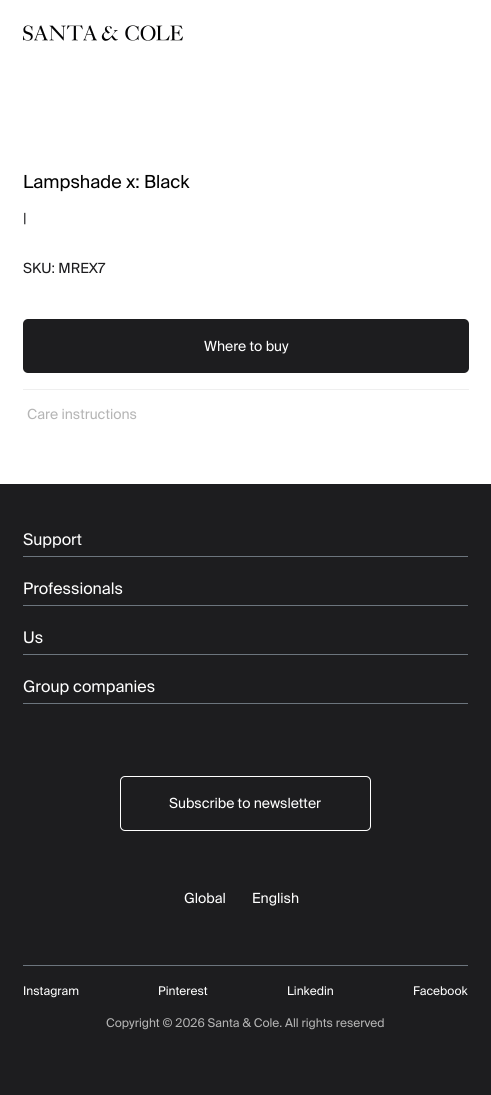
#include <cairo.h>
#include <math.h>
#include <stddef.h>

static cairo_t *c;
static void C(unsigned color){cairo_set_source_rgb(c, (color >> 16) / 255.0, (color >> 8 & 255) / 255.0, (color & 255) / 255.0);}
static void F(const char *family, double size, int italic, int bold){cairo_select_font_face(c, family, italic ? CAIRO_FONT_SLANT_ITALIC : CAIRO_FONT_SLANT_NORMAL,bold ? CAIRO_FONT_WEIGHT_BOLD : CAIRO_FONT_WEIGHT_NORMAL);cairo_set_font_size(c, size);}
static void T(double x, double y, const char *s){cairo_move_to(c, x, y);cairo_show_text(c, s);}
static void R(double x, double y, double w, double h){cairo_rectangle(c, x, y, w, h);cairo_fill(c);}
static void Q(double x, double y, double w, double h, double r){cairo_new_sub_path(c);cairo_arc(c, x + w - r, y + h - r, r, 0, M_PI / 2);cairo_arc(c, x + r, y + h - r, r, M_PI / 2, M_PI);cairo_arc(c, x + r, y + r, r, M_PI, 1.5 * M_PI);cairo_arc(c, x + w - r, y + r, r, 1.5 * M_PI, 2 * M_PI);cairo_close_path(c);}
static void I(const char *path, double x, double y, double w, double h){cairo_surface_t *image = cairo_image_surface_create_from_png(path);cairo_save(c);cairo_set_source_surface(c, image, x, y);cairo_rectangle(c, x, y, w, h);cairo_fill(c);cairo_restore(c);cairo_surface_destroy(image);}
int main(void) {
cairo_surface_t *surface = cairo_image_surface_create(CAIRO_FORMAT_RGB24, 491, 1095);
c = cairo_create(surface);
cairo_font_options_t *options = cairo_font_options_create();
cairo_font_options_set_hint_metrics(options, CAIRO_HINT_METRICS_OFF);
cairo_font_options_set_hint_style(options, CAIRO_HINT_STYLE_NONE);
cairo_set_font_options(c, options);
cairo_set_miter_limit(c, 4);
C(0xffffff);
cairo_paint(c);
I("1.png",23,25,160,16);
F("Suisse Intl",18,0,0);
C(0x000000);
T(23,188,"Lampshade x: Black");
F("Suisse Intl",14,0,0);
C(0x1d1d1f);
T(23,223,"|");
T(23,273,"SKU: MREX7");
Q(23,319,446,54,5);
cairo_fill(c);
C(0xffffff);
T(204,351,"Where to buy");
C(0xefefef);
R(23,389,446,1);
C(0xb5b5b5);
T(27,419,"Care instructions");
C(0x1d1d1f);
R(0,484,491,611);
C(0x6c757d);
R(23,556,445,1);
F("Suisse Intl",16,0,0);
C(0xffffff);
T(23,545,"Support");
C(0x6c757d);
R(23,605,445,1);
C(0xffffff);
T(23,594,"Professionals");
C(0x6c757d);
R(23,654,445,1);
C(0xffffff);
T(23,643,"Us");
C(0x6c757d);
R(23,703,445,1);
C(0xffffff);
T(23,692,"Group companies");
Q(120.5,776.5,250,54,4.5);
cairo_set_line_width(c,1);
cairo_stroke(c);
F("Suisse Intl",14,0,0);
T(169,808,"Subscribe to newsletter");
T(184,903,"Global");
T(252,903,"English");
C(0x6c757d);
R(23,965,445,1);
F("Suisse Intl",12,0,0);
C(0xffffff);
T(23,995,"Instagram");
T(158,995,"Pinterest");
T(287,995,"Linkedin");
T(413,995,"Facebook");
C(0xb5b5b5);
T(106,1027,"Copyright © 2026 Santa & Cole. All rights reserved");
cairo_surface_write_to_png(surface, "o.png");
cairo_font_options_destroy(options);
cairo_destroy(c);
cairo_surface_destroy(surface);
return 0;
}
